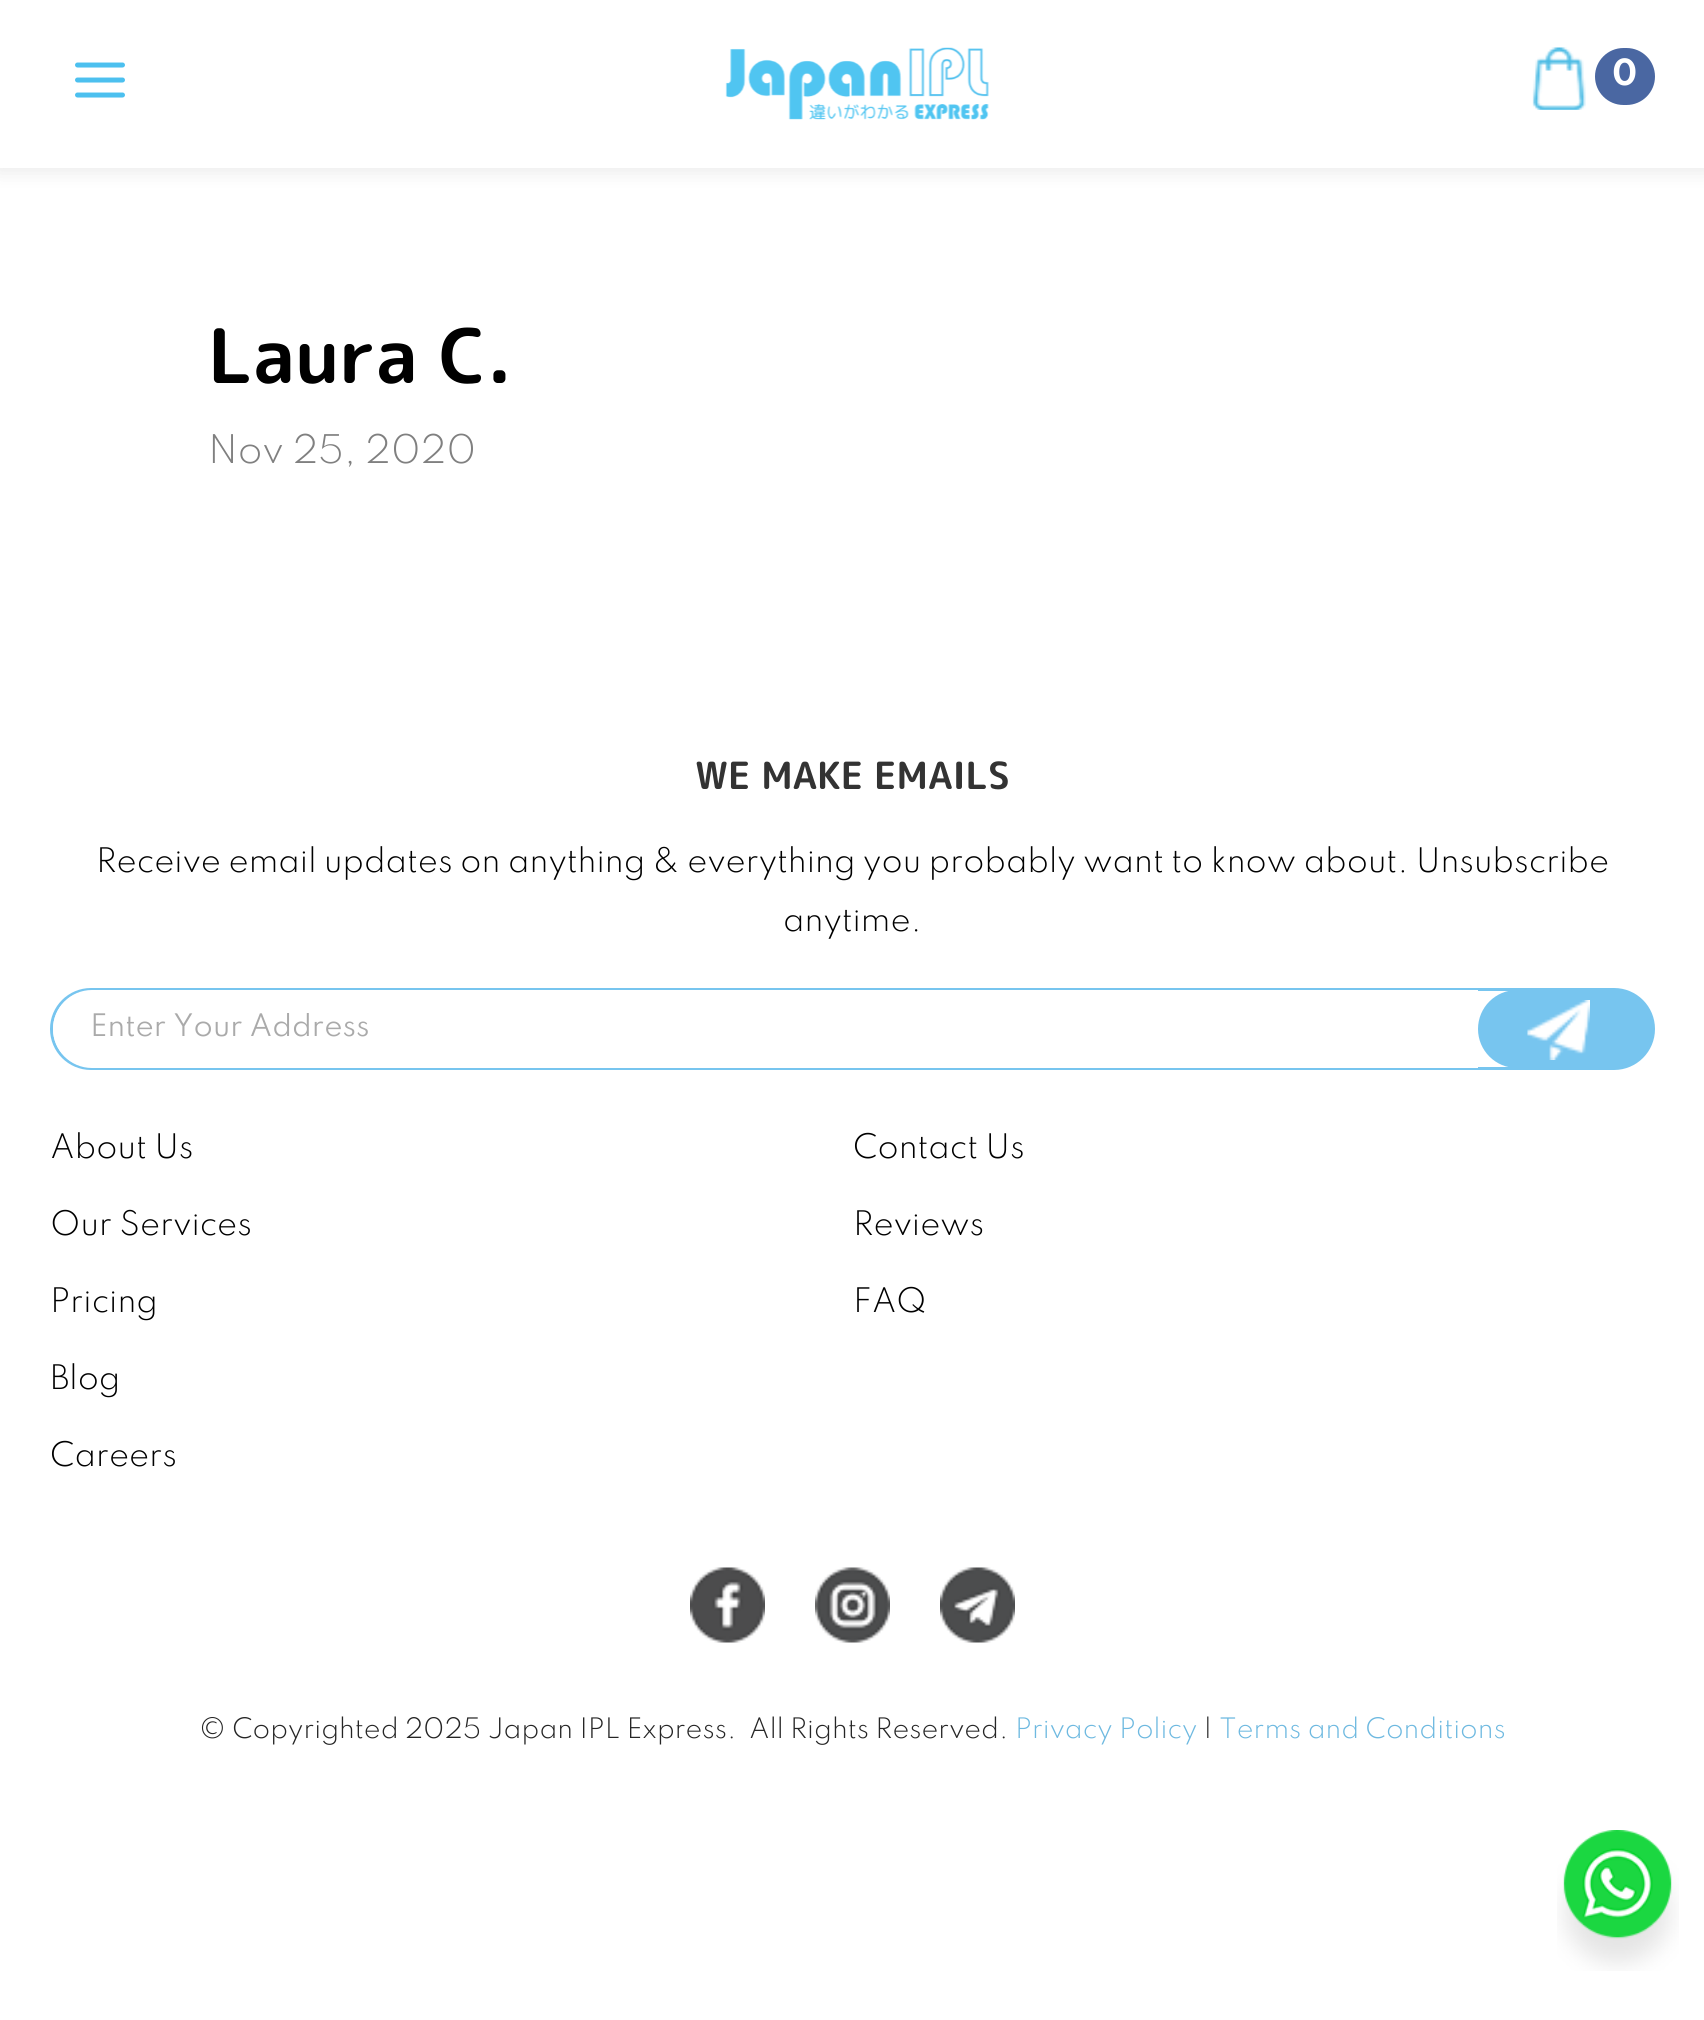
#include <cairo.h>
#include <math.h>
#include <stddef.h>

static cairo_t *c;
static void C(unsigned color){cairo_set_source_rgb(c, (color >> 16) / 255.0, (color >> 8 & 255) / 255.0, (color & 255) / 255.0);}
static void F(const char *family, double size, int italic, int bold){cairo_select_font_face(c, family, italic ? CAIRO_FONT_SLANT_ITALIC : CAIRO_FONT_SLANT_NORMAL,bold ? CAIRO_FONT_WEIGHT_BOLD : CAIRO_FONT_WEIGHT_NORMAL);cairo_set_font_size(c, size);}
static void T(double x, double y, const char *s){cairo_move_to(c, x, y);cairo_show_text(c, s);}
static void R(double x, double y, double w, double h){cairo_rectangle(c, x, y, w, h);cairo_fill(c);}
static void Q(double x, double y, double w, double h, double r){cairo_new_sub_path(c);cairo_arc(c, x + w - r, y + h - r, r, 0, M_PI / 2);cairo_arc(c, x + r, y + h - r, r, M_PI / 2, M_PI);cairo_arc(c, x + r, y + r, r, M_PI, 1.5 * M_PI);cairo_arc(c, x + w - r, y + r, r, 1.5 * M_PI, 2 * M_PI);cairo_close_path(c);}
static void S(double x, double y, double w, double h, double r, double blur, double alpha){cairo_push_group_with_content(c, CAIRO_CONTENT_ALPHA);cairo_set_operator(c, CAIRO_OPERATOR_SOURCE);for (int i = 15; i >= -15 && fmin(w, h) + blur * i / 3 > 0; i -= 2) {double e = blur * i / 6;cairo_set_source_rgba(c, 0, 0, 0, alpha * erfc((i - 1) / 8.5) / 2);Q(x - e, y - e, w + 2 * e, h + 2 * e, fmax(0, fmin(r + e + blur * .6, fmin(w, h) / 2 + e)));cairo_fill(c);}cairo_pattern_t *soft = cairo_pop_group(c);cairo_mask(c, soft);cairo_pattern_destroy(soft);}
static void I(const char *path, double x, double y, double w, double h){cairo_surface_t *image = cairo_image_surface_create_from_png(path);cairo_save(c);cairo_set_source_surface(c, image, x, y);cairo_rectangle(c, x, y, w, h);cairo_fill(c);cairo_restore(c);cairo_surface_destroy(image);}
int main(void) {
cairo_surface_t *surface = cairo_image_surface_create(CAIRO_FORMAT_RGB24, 1704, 2020);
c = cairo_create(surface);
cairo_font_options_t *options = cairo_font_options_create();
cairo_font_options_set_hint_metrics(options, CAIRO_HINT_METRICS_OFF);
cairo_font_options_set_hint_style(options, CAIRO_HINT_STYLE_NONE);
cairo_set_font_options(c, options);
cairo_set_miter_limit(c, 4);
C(0xffffff);
cairo_paint(c);
C(0x000000);
S(-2,-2,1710,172,0,10,.1);
C(0xffffff);
R(0,0,1704,168);
I("1.png",75,62,50,36);
I("2.png",725,47,264,73);
I("3.png",1532,47,54,63);
C(0x4a67a2);
Q(1595,48,60,57,28.5);
cairo_fill(c);
F("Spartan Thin",32,0,1);
C(0xffffff);
T(1612,85,"0");
F("Rounded Mplus 1c Bold",75,0,1);
C(0x000000);
T(208,383,"Laura C.");
F("Spartan Thin Light",35,0,0);
C(0x808080);
T(208,463,"Nov 25, 2020");
F("Rounded Mplus 1c Bold",37.5,0,1);
C(0x333333);
T(695,789,"WE MAKE EMAILS");
F("Spartan Thin Light",30,0,0);
C(0x000000);
T(96,872,"Receive email updates on anything & everything you probably want to know about. Unsubscribe");
T(783,931,"anytime.");
Q(51.5,989.5,1602,79,39.5);
C(0x77c5ef);
cairo_set_line_width(c,3);
cairo_stroke(c);
C(0xffffff);
cairo_new_path(c);
cairo_move_to(c,92,990);
cairo_line_to(c,1478,990);
cairo_line_to(c,1478,1068);
cairo_line_to(c,92,1068);
cairo_curve_to(c,70.5,1068,53,1050.5,53,1029);
cairo_curve_to(c,53,1007.5,70.5,990,92,990);
cairo_close_path(c);
cairo_fill(c);
cairo_save(c);
cairo_rectangle(c,90,1013,1350,32);
cairo_clip(c);
F("Spartan Thin",27.5,0,0);
C(0xaaaaaa);
T(90,1036,"Enter Your Address");
cairo_restore(c);
C(0x77c5ef);
Q(1478,990,175,78,39);
cairo_fill(c);
I("4.png",1527,1000,63,60);
C(0x000000);
T(50,1158,"About Us");
T(50,1235,"Our Services");
T(50,1312,"Pricing");
T(50,1389,"Blog");
T(50,1466,"Careers");
T(853,1158,"Contact Us");
T(853,1235,"Reviews");
T(853,1312,"FAQ");
I("5.png",690,1567,75,76);
I("6.png",815,1567,75,76);
I("7.png",940,1567,75,76);
F("Spartan Thin Light",25,0,0);
C(0x252525);
T(199,1738,"© Copyrighted 2025 Japan IPL Express.  All Rights Reserved.");
C(0x6eb9e0);
T(1015,1738,"Privacy Policy");
C(0x252525);
T(1203,1738,"|");
C(0x6eb9e0);
T(1219,1738,"Terms and Conditions");
I("8.png",1557,1830,122,141);
cairo_surface_write_to_png(surface, "o.png");
cairo_font_options_destroy(options);
cairo_destroy(c);
cairo_surface_destroy(surface);
return 0;
}
